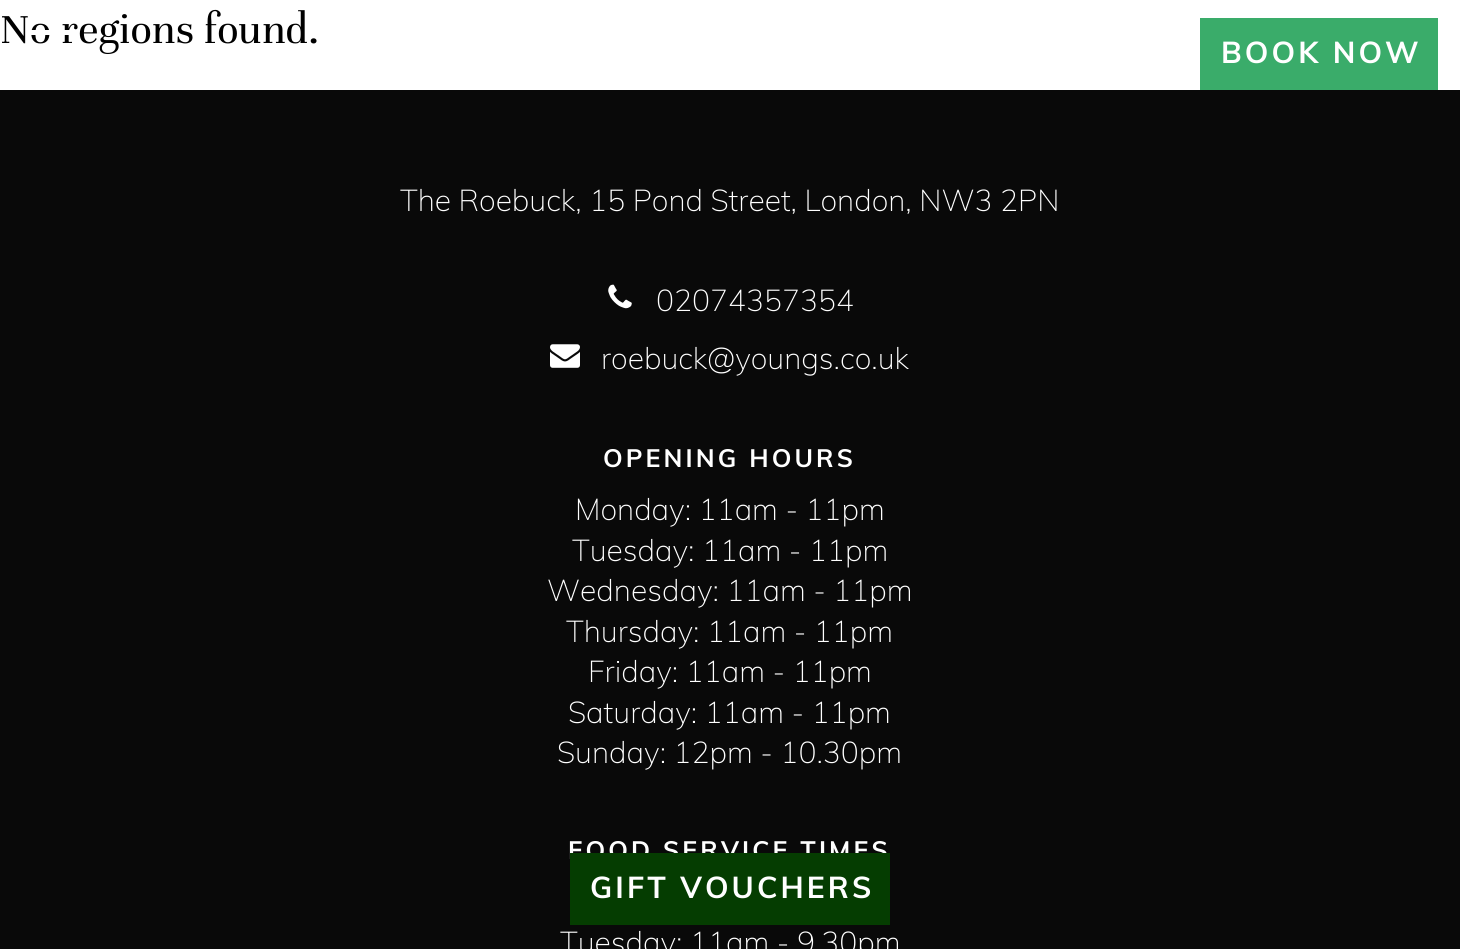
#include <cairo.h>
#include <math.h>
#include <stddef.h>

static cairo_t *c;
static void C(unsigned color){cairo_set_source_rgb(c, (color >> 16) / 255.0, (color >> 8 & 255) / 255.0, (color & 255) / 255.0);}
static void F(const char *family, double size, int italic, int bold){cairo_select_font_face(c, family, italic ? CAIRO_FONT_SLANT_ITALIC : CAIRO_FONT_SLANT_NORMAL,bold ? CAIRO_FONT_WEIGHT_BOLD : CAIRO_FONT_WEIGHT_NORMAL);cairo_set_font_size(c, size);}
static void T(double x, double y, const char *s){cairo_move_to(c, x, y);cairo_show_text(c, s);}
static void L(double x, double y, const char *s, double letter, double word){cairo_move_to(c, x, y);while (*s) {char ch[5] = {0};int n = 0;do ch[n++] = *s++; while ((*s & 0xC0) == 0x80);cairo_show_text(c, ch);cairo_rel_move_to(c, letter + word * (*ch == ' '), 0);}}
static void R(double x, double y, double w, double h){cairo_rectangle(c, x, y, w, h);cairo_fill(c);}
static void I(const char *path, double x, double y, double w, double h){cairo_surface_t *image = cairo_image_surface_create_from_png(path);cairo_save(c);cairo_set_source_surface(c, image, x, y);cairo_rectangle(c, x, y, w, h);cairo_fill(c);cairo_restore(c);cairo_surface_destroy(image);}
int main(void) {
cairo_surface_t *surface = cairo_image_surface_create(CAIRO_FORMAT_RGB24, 1460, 949);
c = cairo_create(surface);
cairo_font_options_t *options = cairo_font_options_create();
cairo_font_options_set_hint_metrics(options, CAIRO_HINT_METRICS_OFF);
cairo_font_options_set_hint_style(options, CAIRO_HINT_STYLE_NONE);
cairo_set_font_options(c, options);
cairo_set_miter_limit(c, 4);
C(0xffffff);
cairo_paint(c);
F("Unna",45,0,0);
C(0x000000);
T(0,43,"No regions found.");
C(0xffffff);
R(30,30,48,5);
C(0x3aac6a);
R(1200,18,238,72);
F("Muli",30,0,1);
C(0xffffff);
L(1221,63,"BOOK NOW",3.1,0);
C(0x090909);
R(0,90,1460,859);
F("Muli",25,0,1);
C(0xffffff);
L(568,859,"FOOD SERVICE TIMES",3.1,0);
C(0x053d01);
R(570,853,320,72);
F("Muli",30,0,1);
C(0xffffff);
L(590,898,"GIFT VOUCHERS",3.1,0);
F("Muli ExtraLight",30,0,0);
T(400,211,"The Roebuck, 15 Pond Street, London, NW3 2PN");
I("1.png",608,284,24,25);
T(656,311,"02074357354");
I("2.png",550,344,30,24);
T(601,369,"roebuck@youngs.co.uk");
F("Muli",25,0,1);
L(603,467,"OPENING HOURS",3.1,0);
F("Muli ExtraLight",30,0,0);
T(575,520,"Monday: 11am - 11pm");
T(572,561,"Tuesday: 11am - 11pm");
T(547,601,"Wednesday: 11am - 11pm");
T(566,642,"Thursday: 11am - 11pm");
T(588,682,"Friday: 11am - 11pm");
T(568,723,"Saturday: 11am - 11pm");
T(557,763,"Sunday: 12pm - 10.30pm");
T(560,953,"Tuesday: 11am - 9.30pm");
cairo_surface_write_to_png(surface, "o.png");
cairo_font_options_destroy(options);
cairo_destroy(c);
cairo_surface_destroy(surface);
return 0;
}
